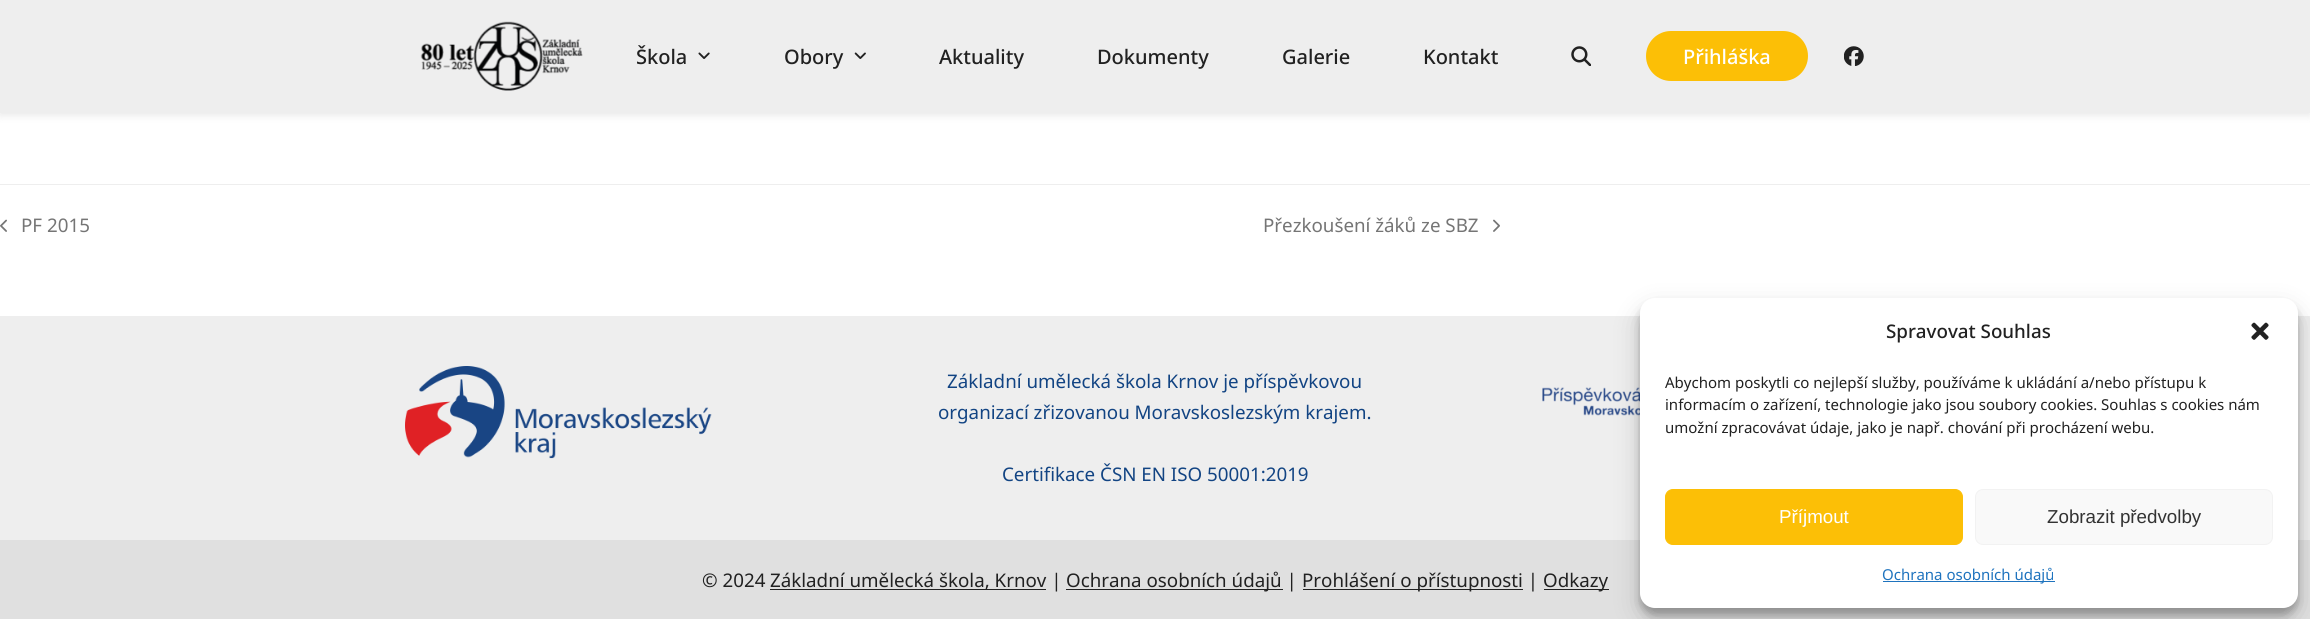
#include <cairo.h>
#include <math.h>
#include <stddef.h>

static cairo_t *c;
static void C(unsigned color){cairo_set_source_rgb(c, (color >> 16) / 255.0, (color >> 8 & 255) / 255.0, (color & 255) / 255.0);}
static void F(const char *family, double size, int italic, int bold){cairo_select_font_face(c, family, italic ? CAIRO_FONT_SLANT_ITALIC : CAIRO_FONT_SLANT_NORMAL,bold ? CAIRO_FONT_WEIGHT_BOLD : CAIRO_FONT_WEIGHT_NORMAL);cairo_set_font_size(c, size);}
static void T(double x, double y, const char *s){cairo_move_to(c, x, y);cairo_show_text(c, s);}
static void R(double x, double y, double w, double h){cairo_rectangle(c, x, y, w, h);cairo_fill(c);}
static void Q(double x, double y, double w, double h, double r){cairo_new_sub_path(c);cairo_arc(c, x + w - r, y + h - r, r, 0, M_PI / 2);cairo_arc(c, x + r, y + h - r, r, M_PI / 2, M_PI);cairo_arc(c, x + r, y + r, r, M_PI, 1.5 * M_PI);cairo_arc(c, x + w - r, y + r, r, 1.5 * M_PI, 2 * M_PI);cairo_close_path(c);}
static void S(double x, double y, double w, double h, double r, double blur, double alpha){cairo_push_group_with_content(c, CAIRO_CONTENT_ALPHA);cairo_set_operator(c, CAIRO_OPERATOR_SOURCE);for (int i = 15; i >= -15 && fmin(w, h) + blur * i / 3 > 0; i -= 2) {double e = blur * i / 6;cairo_set_source_rgba(c, 0, 0, 0, alpha * erfc((i - 1) / 8.5) / 2);Q(x - e, y - e, w + 2 * e, h + 2 * e, fmax(0, fmin(r + e + blur * .6, fmin(w, h) / 2 + e)));cairo_fill(c);}cairo_pattern_t *soft = cairo_pop_group(c);cairo_mask(c, soft);cairo_pattern_destroy(soft);}
static void I(const char *path, double x, double y, double w, double h){cairo_surface_t *image = cairo_image_surface_create_from_png(path);cairo_save(c);cairo_set_source_surface(c, image, x, y);cairo_rectangle(c, x, y, w, h);cairo_fill(c);cairo_restore(c);cairo_surface_destroy(image);}
int main(void) {
cairo_surface_t *surface = cairo_image_surface_create(CAIRO_FORMAT_RGB24, 2310, 619);
c = cairo_create(surface);
cairo_font_options_t *options = cairo_font_options_create();
cairo_font_options_set_hint_metrics(options, CAIRO_HINT_METRICS_OFF);
cairo_font_options_set_hint_style(options, CAIRO_HINT_STYLE_NONE);
cairo_set_font_options(c, options);
cairo_set_miter_limit(c, 4);
C(0xffffff);
cairo_paint(c);
C(0x000000);
S(0,3,2310,112,0,4.5,.1);
C(0xeeeeee);
R(0,0,2310,113);
I("1.png",420,21,163,70);
F("Noto Sans Medium",20,0,0);
C(0x212121);
T(636,64,"Škola");
I("2.png",698,52,12,7);
T(784,64,"Obory");
I("3.png",854,52,12,7);
T(939,64,"Aktuality");
T(1097,64,"Dokumenty");
T(1282,64,"Galerie");
T(1423,64,"Kontakt");
I("4.png",1571,46,20,20);
C(0xfcbf06);
Q(1646,31,162,50,25);
cairo_fill(c);
C(0xffffff);
T(1683,64,"Přihláška");
I("5.png",1844,46,20,20);
C(0xeeeeee);
R(0,184,2310,1);
I("6.png",0,219,7,13);
F("Noto Sans",18.75,0,0);
C(0x757575);
T(21,232,"PF 2015");
T(1263,232,"Přezkoušení žáků ze SBZ");
I("7.png",1493,219,7,13);
C(0xeeeeee);
R(0,316,2310,224);
I("8.png",405,366,307,93);
C(0x124483);
T(947,388,"Základní umělecká škola Krnov je příspěvkovou");
T(938,419,"organizací zřizovanou Moravskoslezským krajem.");
T(1002,481,"Certifikace ČSN EN ISO 50001:2019");
I("9.png",1542,387,98,29);
C(0xe0e0e0);
R(0,540,2310,79);
C(0x212121);
T(702,587,"© 2024");
R(770,589,276,1);
T(770,587,"Základní umělecká škola, Krnov |");
R(1066,589,217,1);
T(1066,587,"Ochrana osobních údajů |");
R(1303,589,220,1);
T(1302,587,"Prohlášení o přístupnosti |");
R(1544,589,65,1);
T(1543,587,"Odkazy");
C(0x000000);
S(1640,305,658,310,15,4,.23);
S(1640,310,658,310,15,12.5,.19);
C(0xffffff);
Q(1640,298,658,310,15);
cairo_fill(c);
F("Noto Sans Medium",18.75,0,0);
C(0x212121);
T(1886,338,"Spravovat Souhlas");
I("10.png",2251,322,18,18);
F("Noto Sans",15,0,0);
T(1665,388,"Abychom poskytli co nejlepší služby, používáme k ukládání a/nebo přístupu k");
T(1665,410,"informacím o zařízení, technologie jako jsou soubory cookies. Souhlas s cookies nám");
T(1665,433,"umožní zpracovávat údaje, jako je např. chování při procházení webu.");
C(0xfcbf06);
Q(1665.5,489.5,297,55,7.5);
cairo_fill_preserve(c);
cairo_set_line_width(c,1);
cairo_stroke(c);
F("Liberation Sans",18.75,0,0);
C(0xffffff);
T(1779,523,"Příjmout");
C(0xf9f9f9);
Q(1975.5,489.5,297,55,7.5);
cairo_fill_preserve(c);
C(0xf2f2f2);
cairo_stroke(c);
C(0x333333);
T(2047,523,"Zobrazit předvolby");
C(0x1e73be);
R(1883,581,172,1);
F("Noto Sans",15,0,0);
T(1882,580,"Ochrana osobních údajů");
cairo_surface_write_to_png(surface, "o.png");
cairo_font_options_destroy(options);
cairo_destroy(c);
cairo_surface_destroy(surface);
return 0;
}
